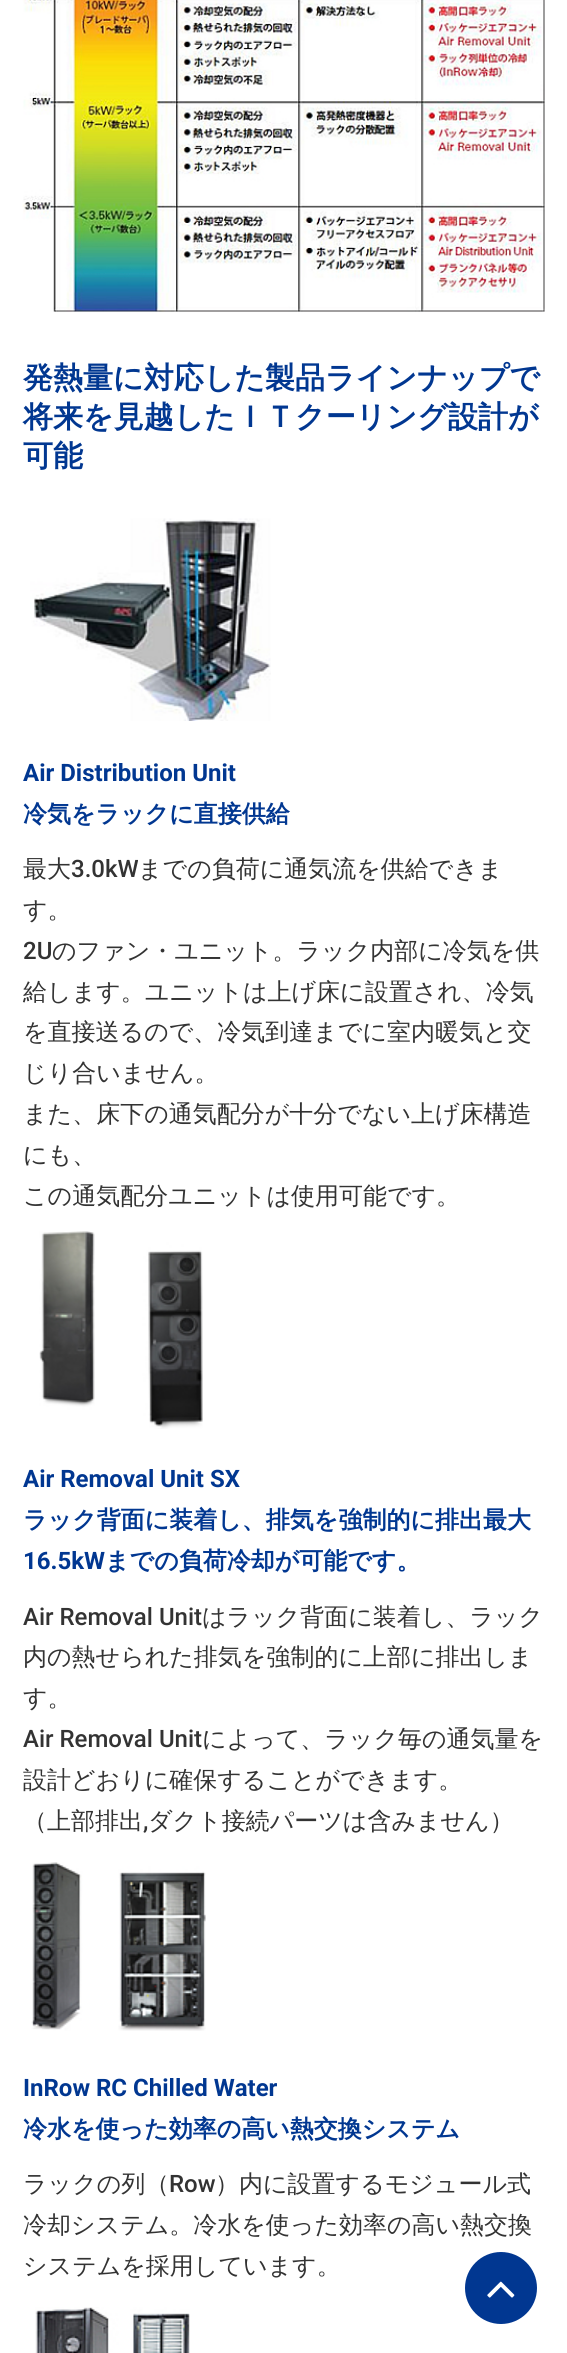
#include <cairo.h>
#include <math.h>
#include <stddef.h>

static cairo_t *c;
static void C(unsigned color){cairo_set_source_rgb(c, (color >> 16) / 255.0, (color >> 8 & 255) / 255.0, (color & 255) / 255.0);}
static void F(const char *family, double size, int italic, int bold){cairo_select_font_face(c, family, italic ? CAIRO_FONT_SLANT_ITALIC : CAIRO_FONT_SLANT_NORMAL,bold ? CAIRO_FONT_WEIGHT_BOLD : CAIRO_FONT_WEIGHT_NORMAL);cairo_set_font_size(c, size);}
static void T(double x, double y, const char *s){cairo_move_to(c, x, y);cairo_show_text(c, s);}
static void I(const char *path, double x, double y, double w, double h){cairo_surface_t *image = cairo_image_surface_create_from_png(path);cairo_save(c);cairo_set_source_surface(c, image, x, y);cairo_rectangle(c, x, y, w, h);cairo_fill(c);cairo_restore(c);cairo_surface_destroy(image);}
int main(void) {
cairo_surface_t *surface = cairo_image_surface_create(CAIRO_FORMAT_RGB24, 567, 2353);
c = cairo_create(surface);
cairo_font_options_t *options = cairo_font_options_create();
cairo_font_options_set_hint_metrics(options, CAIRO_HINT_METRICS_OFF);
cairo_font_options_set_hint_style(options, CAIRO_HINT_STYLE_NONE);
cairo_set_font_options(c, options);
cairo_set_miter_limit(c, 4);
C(0xffffff);
cairo_paint(c);
I("1.png",22,0,523,312);
F("WenQuanYi Zen Hei",30,0,1);
C(0x013791);
T(23,388,"発熱量に対応した製品ラインナップで");
T(23,427,"将来を見越したＩＴクーリング設計が");
T(23,466,"可能");
I("2.png",30,518,241,203);
F("Roboto",24,0,1);
T(23,781,"Air Distribution Unit");
F("WenQuanYi Zen Hei",24,0,1);
T(23,822,"冷気をラックに直接供給");
F("WenQuanYi Zen Hei Medium",24,0,0);
C(0x333333);
T(23,877,"最大");
F("Roboto Medium",24,0,0);
T(71,877,"3.0kW");
F("WenQuanYi Zen Hei Medium",24,0,0);
T(138,877,"までの負荷に通気流を供給できま");
T(23,918,"す。");
F("Roboto Medium",24,0,0);
T(23,959,"2U");
F("WenQuanYi Zen Hei Medium",24,0,0);
T(52,959,"のファン・ユニット。ラック内部に冷気を供");
T(23,1000,"給します。ユニットは上げ床に設置され、冷気");
T(23,1040,"を直接送るので、冷気到達までに室内暖気と交");
T(23,1081,"じり合いません。");
T(23,1122,"また、床下の通気配分が十分でない上げ床構造");
T(23,1163,"にも、");
T(23,1204,"この通気配分ユニットは使用可能です。");
I("3.png",39,1231,164,198);
F("Roboto",24,0,1);
C(0x013791);
T(23,1487,"Air Removal Unit SX");
F("WenQuanYi Zen Hei",24,0,1);
T(23,1528,"ラック背面に装着し、排気を強制的に排出最大");
F("Roboto",24,0,1);
T(23,1569,"16.5kW");
F("WenQuanYi Zen Hei",24,0,1);
T(105,1569,"までの負荷冷却が可能です。");
F("Roboto Medium",24,0,0);
C(0x333333);
T(23,1625,"Air Removal Unit");
F("WenQuanYi Zen Hei Medium",24,0,0);
T(202,1625,"はラック背面に装着し、ラック");
T(23,1665,"内の熱せられた排気を強制的に上部に排出しま");
T(23,1706,"す。");
F("Roboto Medium",24,0,0);
T(23,1747,"Air Removal Unit");
F("WenQuanYi Zen Hei Medium",24,0,0);
T(202,1747,"によって、ラック毎の通気量を");
T(23,1788,"設計どおりに確保することができます。");
T(23,1829,"（上部排出");
F("Roboto Medium",24,0,0);
T(143,1829,",");
F("WenQuanYi Zen Hei Medium",24,0,0);
T(148,1829,"ダクト接続パーツは含みません）");
I("4.png",31,1862,175,169);
F("Roboto",24,0,1);
C(0x013791);
T(23,2096,"InRow RC Chilled Water");
F("WenQuanYi Zen Hei",24,0,1);
T(23,2137,"冷水を使った効率の高い熱交換システム");
F("WenQuanYi Zen Hei Medium",24,0,0);
C(0x333333);
T(23,2192,"ラックの列（");
F("Roboto Medium",24,0,0);
T(169,2192,"Row");
F("WenQuanYi Zen Hei Medium",24,0,0);
T(215,2192,"）内に設置するモジュール式");
T(23,2233,"冷却システム。冷水を使った効率の高い熱交換");
T(23,2274,"システムを採用しています。");
I("5.png",35,2307,155,46);
C(0x013791);
cairo_arc(c,501,2288,36,0,2 * M_PI);
cairo_fill(c);
I("6.png",487,2281,28,17);
cairo_surface_write_to_png(surface, "o.png");
cairo_font_options_destroy(options);
cairo_destroy(c);
cairo_surface_destroy(surface);
return 0;
}
